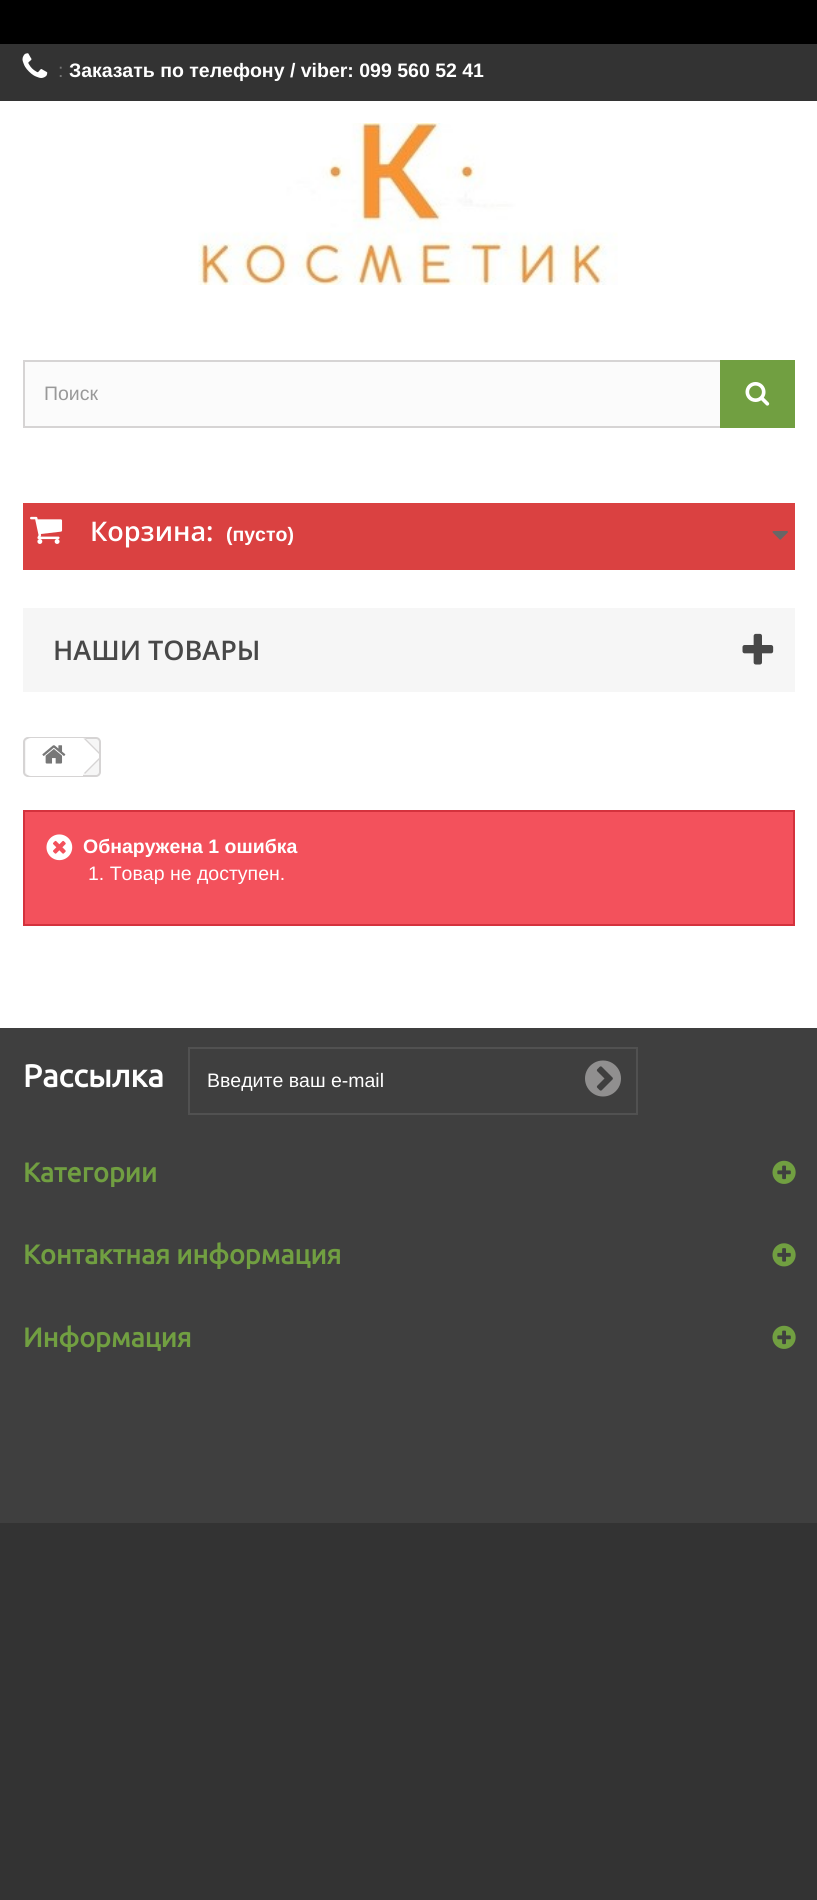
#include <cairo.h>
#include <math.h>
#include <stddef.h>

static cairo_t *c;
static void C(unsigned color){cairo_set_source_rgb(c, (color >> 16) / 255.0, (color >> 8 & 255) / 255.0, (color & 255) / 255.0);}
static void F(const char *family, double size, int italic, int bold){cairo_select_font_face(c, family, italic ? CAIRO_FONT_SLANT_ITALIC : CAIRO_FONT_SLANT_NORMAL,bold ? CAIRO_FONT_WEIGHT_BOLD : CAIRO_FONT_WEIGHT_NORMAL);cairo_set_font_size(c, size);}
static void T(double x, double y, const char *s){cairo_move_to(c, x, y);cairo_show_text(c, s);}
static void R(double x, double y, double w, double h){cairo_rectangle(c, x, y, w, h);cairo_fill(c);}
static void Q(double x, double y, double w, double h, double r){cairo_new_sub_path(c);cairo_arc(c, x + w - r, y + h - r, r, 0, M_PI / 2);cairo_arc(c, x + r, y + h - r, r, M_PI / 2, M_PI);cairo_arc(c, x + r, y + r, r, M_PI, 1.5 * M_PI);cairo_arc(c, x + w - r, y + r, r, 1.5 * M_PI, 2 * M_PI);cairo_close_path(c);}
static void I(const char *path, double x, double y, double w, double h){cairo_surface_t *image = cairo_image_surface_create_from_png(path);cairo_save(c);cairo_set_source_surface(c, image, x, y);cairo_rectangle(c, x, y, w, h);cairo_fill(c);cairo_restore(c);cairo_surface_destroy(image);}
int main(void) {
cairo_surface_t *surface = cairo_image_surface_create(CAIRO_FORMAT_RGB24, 817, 1900);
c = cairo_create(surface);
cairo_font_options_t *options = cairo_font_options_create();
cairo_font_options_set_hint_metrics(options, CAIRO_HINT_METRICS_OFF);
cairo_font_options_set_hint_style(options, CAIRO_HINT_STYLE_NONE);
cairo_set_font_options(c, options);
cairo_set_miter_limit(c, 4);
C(0x333333);
cairo_paint(c);
C(0xffffff);
R(0,101,817,927);
C(0x000000);
R(0,0,817,44);
I("1.png",22,53,26,25);
F("Liberation Sans",19.5,0,0);
C(0x777777);
T(58,77,":");
F("Liberation Sans",19.5,0,1);
C(0xffffff);
T(69,77,"Заказать по телефону / viber: 099 560 52 41");
I("2.png",198,123,420,162);
C(0xfbfbfb);
R(25,362,695,64);
cairo_rectangle(c,24,361,770,66);
C(0xd6d4d4);
cairo_stroke(c);
F("Liberation Sans",19.5,0,0);
C(0x999999);
T(44,400,"Поиск");
C(0x719f41);
R(720,360,75,68);
I("3.png",745,382,25,24);
C(0xda4141);
R(23,503,772,67);
I("4.png",30,516,33,28);
F("Open Sans SemiBold",27,0,0);
C(0xffffff);
T(90,541,"Корзина:");
F("Liberation Sans",19.5,0,1);
T(226,541,"(пусто)");
I("5.png",772,531,16,9);
C(0xf6f6f6);
R(23,608,772,84);
F("Open Sans SemiBold",27,0,0);
C(0x484848);
T(53,660,"НАШИ ТОВАРЫ");
I("6.png",742,633,32,32);
C(0xf6f6f6);
Q(24,738,76,38,4);
cairo_fill_preserve(c);
C(0xd6d4d4);
cairo_stroke(c);
C(0xffffff);
cairo_new_path(c);
cairo_move_to(c,31,738);
cairo_line_to(c,83,738);
cairo_line_to(c,83,776);
cairo_line_to(c,31,776);
cairo_curve_to(c,28,776,26,774,26,771);
cairo_line_to(c,26,743);
cairo_curve_to(c,26,740,28,738,31,738);
cairo_close_path(c);
cairo_fill(c);
I("7.png",42,745,24,19);
cairo_new_path(c);
cairo_move_to(c,86,739);
cairo_curve_to(c,85,737.5,83,738,82,739);
cairo_line_to(c,69.5,751.5);
cairo_curve_to(c,65,756,65,756,69.5,760.5);
cairo_line_to(c,79.5,770.5);
cairo_curve_to(c,83.5,774.5,84,775,88,771);
cairo_line_to(c,99,760);
cairo_line_to(c,99,752);
cairo_close_path(c);
cairo_fill(c);
C(0xd6d4d4);
cairo_new_path(c);
cairo_move_to(c,85,738);
cairo_line_to(c,99,752);
cairo_line_to(c,99,754);
cairo_line_to(c,84,739);
cairo_close_path(c);
cairo_move_to(c,99,758);
cairo_line_to(c,99,760);
cairo_line_to(c,85,774);
cairo_line_to(c,84,773);
cairo_close_path(c);
cairo_fill(c);
C(0xf3515c);
cairo_rectangle(c,24,811,770,114);
cairo_fill_preserve(c);
C(0xd4323d);
cairo_stroke(c);
I("8.png",46,834,27,27);
F("Liberation Sans",19.5,0,1);
C(0xffffff);
T(83,853,"Обнаружена 1 ошибка");
F("Liberation Sans",19.5,0,0);
T(88,880,"1. Товар не доступен.");
C(0x3f3f3f);
R(0,1028,817,495);
F("Ubuntu",31.5,0,1);
C(0xffffff);
T(23,1087,"Рассылка");
cairo_rectangle(c,189,1048,448,66);
C(0x515151);
cairo_stroke(c);
F("Liberation Sans",19.5,0,0);
C(0xffffff);
T(207,1087,"Введите ваш e-mail");
I("9.png",585,1060,36,37);
F("Ubuntu",27,0,1);
C(0x719f41);
T(23,1182,"Категории");
I("10.png",772,1160,24,24);
T(23,1264,"Контактная информация");
I("11.png",772,1243,24,24);
T(23,1347,"Информация");
I("10.png",772,1325,24,24);
cairo_surface_write_to_png(surface, "o.png");
cairo_font_options_destroy(options);
cairo_destroy(c);
cairo_surface_destroy(surface);
return 0;
}
